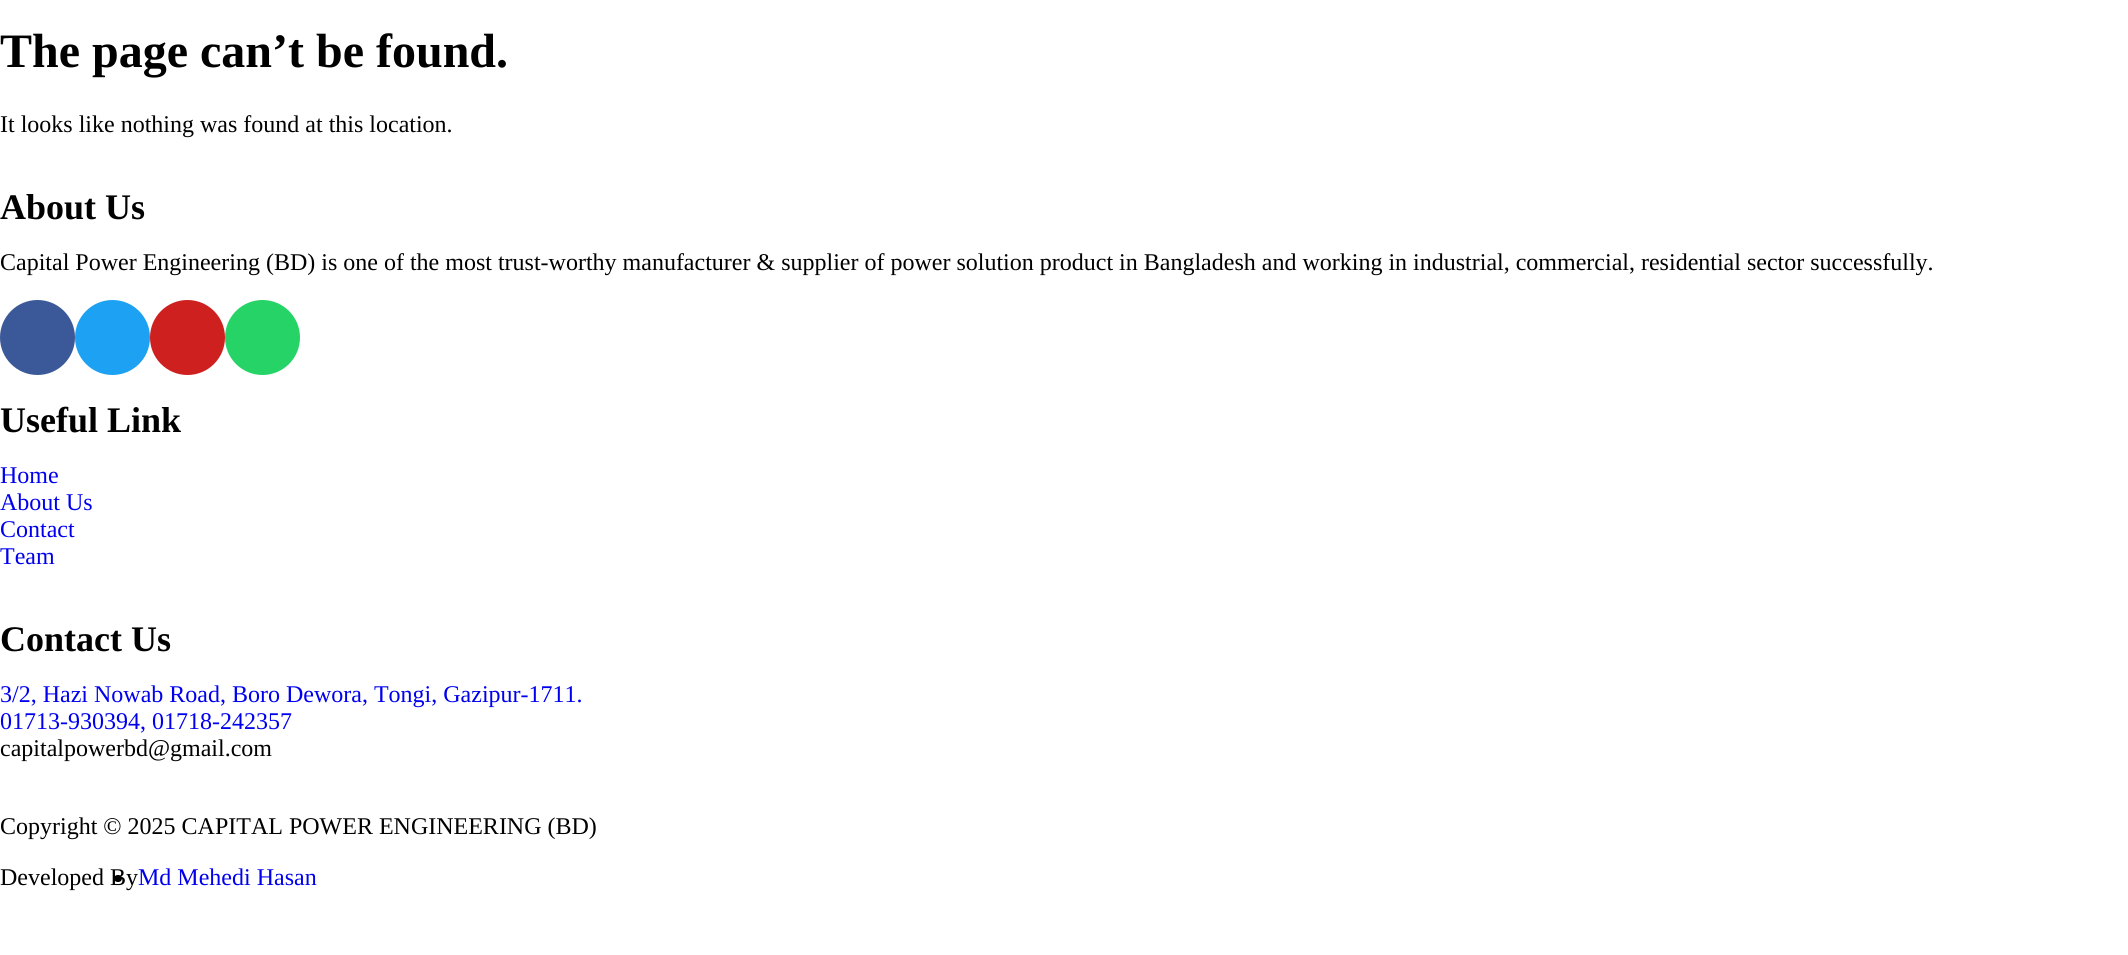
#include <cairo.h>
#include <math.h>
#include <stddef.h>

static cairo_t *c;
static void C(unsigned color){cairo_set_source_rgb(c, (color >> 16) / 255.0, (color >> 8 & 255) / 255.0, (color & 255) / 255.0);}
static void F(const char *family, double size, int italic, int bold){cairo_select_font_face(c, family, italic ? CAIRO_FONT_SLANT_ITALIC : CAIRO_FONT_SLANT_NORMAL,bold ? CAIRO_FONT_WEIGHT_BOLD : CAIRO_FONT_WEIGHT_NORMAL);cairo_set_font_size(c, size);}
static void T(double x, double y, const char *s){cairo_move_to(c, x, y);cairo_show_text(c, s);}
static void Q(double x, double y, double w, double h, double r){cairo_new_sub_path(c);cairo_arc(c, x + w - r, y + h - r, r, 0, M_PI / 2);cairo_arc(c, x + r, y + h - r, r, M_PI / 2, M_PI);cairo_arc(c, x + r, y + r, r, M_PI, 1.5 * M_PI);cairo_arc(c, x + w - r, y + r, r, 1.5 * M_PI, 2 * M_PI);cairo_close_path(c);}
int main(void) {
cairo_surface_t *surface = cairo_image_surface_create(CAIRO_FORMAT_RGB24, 2128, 955);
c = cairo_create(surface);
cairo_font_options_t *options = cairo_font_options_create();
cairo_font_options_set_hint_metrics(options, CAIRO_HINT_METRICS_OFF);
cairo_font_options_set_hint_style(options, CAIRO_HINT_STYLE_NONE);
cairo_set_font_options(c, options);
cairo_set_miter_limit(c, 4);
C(0xffffff);
cairo_paint(c);
F("Liberation Serif",48,0,1);
C(0x000000);
T(0,67,"The page can’t be found.");
F("Liberation Serif",24,0,0);
T(0,132,"It looks like nothing was found at this location.");
F("Liberation Serif",36,0,1);
T(0,219,"About Us");
F("Liberation Serif",24,0,0);
T(0,270,"Capital Power Engineering (BD) is one of the most trust-worthy manufacturer & supplier of power solution product in Bangladesh and working in industrial, commercial, residential sector successfully.");
C(0x3b5998);
cairo_new_path(c);
cairo_arc(c,37.5,337.5,37.5,0,2 * M_PI);
cairo_fill(c);
C(0x1da1f2);
cairo_arc(c,112.5,337.5,37.5,0,2 * M_PI);
cairo_fill(c);
C(0xcd201f);
cairo_arc(c,187.5,337.5,37.5,0,2 * M_PI);
cairo_fill(c);
C(0x25d366);
cairo_arc(c,262.5,337.5,37.5,0,2 * M_PI);
cairo_fill(c);
F("Liberation Serif",36,0,1);
C(0x000000);
T(0,432,"Useful Link");
F("Liberation Serif",24,0,0);
C(0x0000ee);
T(0,483,"Home");
T(0,510,"About Us");
T(0,537,"Contact");
T(0,564,"Team");
F("Liberation Serif",36,0,1);
C(0x000000);
T(0,651,"Contact Us");
F("Liberation Serif",24,0,0);
C(0x0000ee);
T(0,702,"3/2, Hazi Nowab Road, Boro Dewora, Tongi, Gazipur-1711.");
T(0,729,"01713-930394, 01718-242357");
C(0x000000);
T(0,756,"capitalpowerbd@gmail.com");
T(0,834,"Copyright © 2025 CAPITAL POWER ENGINEERING (BD)");
T(0,885,"Developed By");
Q(114,875,8,7,3.5);
cairo_fill(c);
C(0x0000ee);
T(138,885,"Md Mehedi Hasan");
cairo_surface_write_to_png(surface, "o.png");
cairo_font_options_destroy(options);
cairo_destroy(c);
cairo_surface_destroy(surface);
return 0;
}
